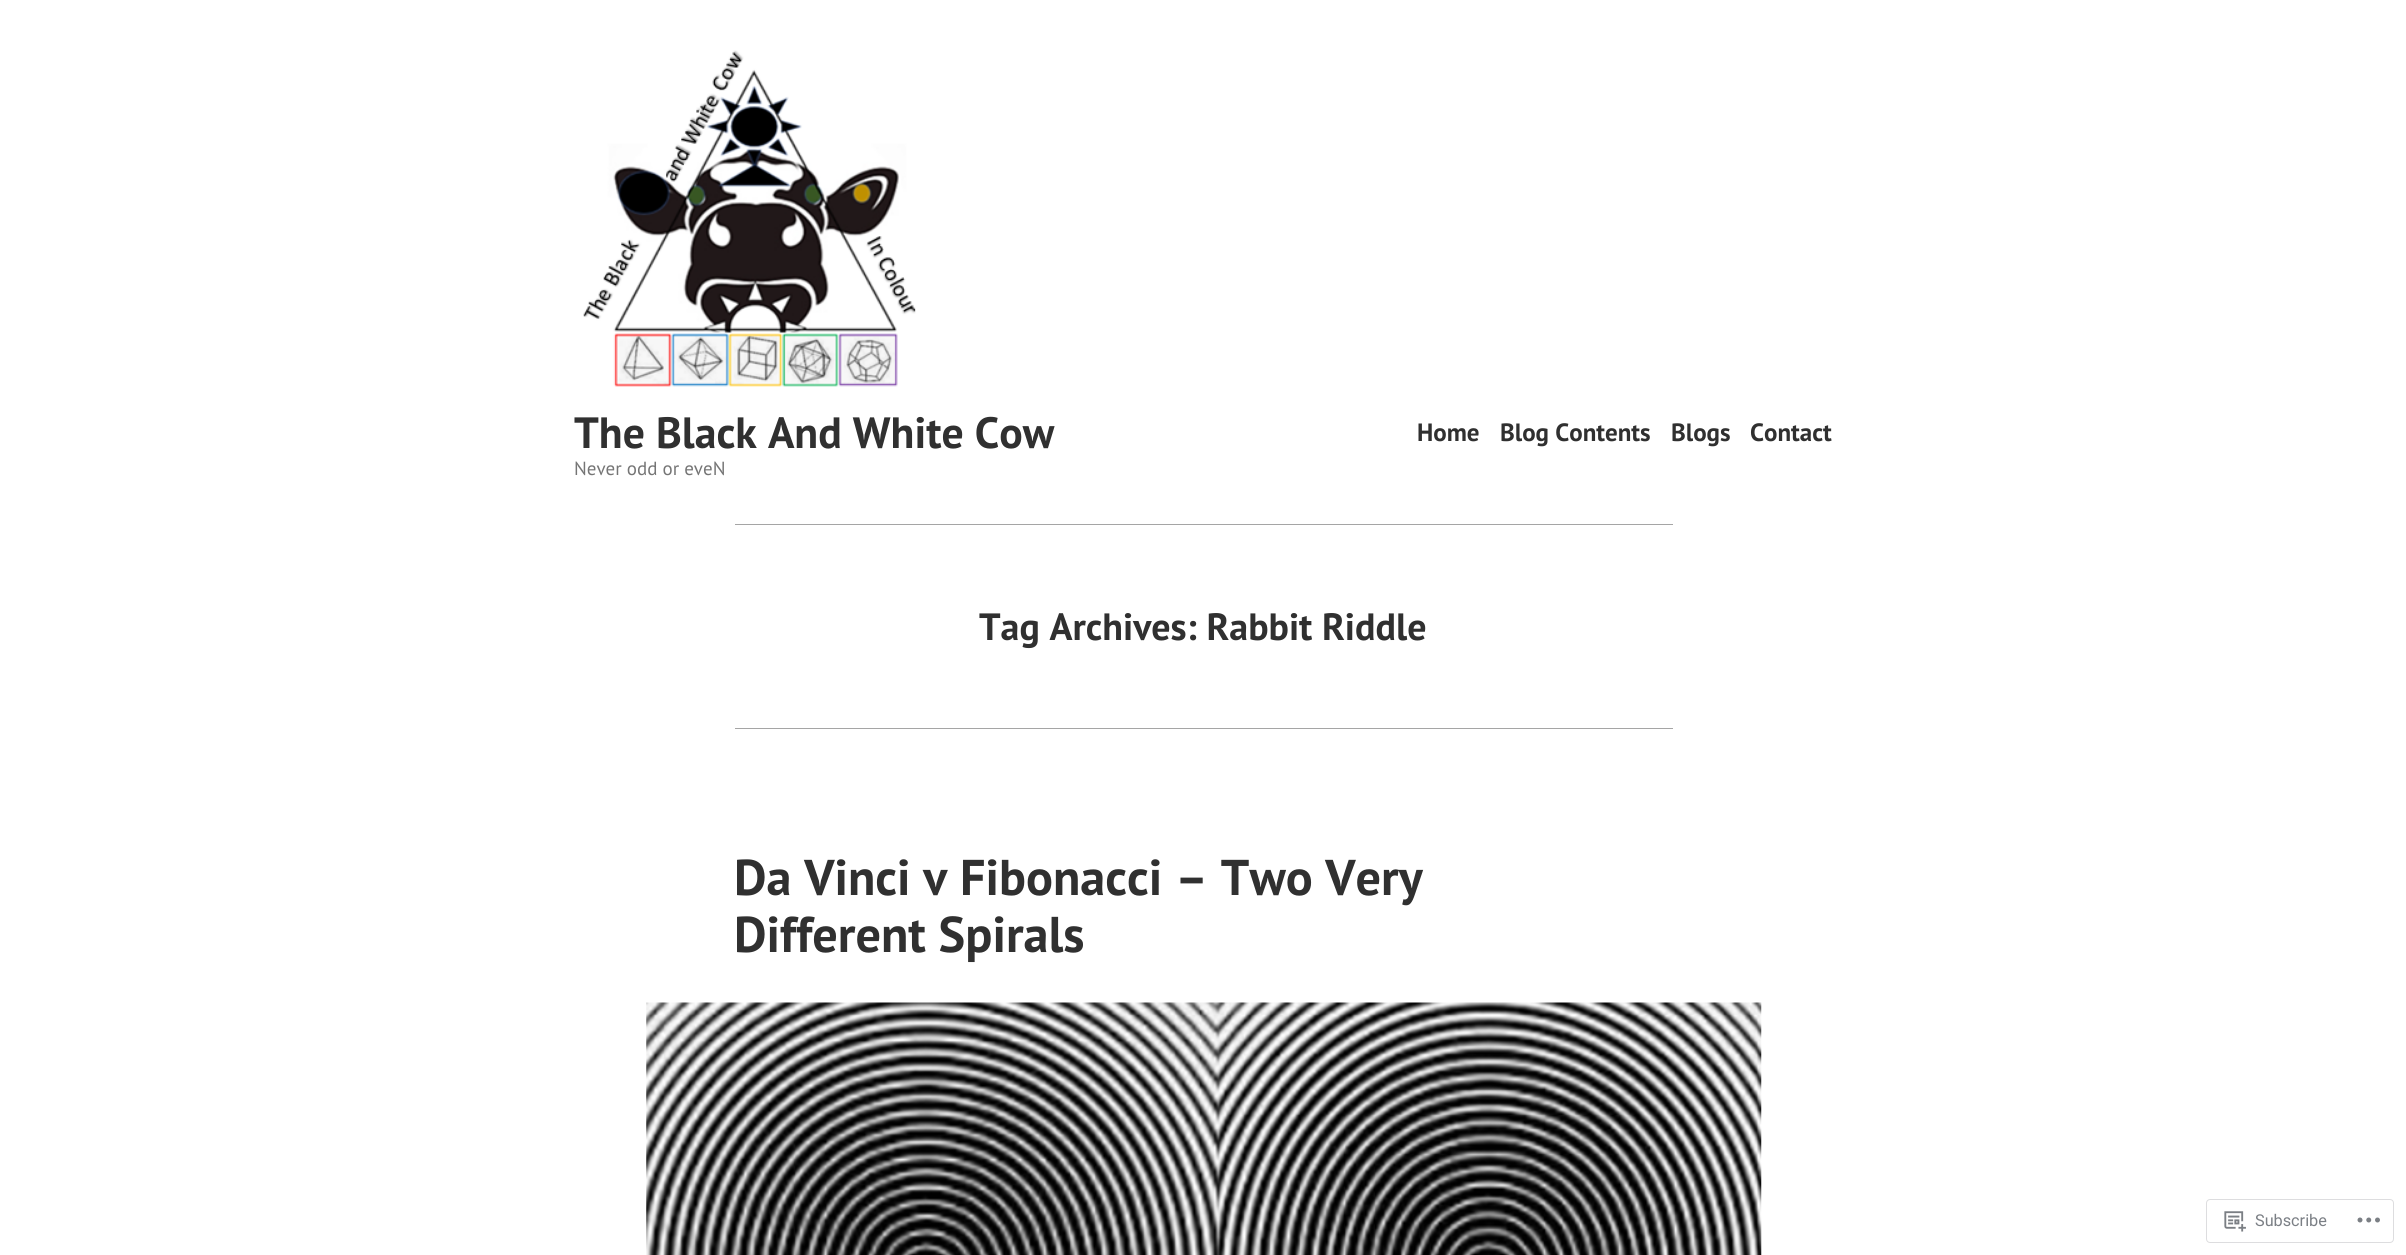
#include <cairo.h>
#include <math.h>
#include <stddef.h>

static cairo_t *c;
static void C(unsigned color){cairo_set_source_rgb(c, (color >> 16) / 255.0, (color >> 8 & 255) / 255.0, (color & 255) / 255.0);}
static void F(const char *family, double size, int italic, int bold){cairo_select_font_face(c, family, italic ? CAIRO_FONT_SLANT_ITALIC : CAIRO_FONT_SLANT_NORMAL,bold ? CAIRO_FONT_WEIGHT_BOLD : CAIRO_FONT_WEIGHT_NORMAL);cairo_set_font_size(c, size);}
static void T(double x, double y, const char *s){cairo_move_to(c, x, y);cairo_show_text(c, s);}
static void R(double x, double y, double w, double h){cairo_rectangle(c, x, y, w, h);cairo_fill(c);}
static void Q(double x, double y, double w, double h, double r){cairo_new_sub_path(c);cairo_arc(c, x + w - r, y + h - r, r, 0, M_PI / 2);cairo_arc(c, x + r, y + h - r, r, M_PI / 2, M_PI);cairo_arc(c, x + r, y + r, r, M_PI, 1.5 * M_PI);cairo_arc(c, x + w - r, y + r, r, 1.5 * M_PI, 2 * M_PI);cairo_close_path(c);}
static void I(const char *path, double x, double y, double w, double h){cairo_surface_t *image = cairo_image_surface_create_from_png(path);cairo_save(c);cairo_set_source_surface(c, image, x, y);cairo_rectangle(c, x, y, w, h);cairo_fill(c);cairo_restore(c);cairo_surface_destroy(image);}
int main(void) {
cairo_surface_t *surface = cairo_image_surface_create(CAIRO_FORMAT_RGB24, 2406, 1255);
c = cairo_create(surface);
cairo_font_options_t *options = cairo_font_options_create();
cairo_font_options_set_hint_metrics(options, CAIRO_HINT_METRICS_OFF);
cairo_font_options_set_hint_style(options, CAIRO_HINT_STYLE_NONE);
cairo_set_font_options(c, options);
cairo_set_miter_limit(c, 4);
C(0xffffff);
cairo_paint(c);
I("1.png",583,50,333,337);
F("PT Sans",43.75,0,1);
C(0x303030);
T(574,448,"The Black And White Cow");
F("PT Sans",25,0,1);
T(1417,441,"Home");
T(1500,441,"Blog Contents");
T(1671,441,"Blogs");
T(1750,441,"Contact");
F("PT Sans",19,0,0);
C(0x757575);
T(574,475,"Never odd or eveN");
C(0xa5a5a5);
R(735,524,938,1);
F("PT Sans",38,0,1);
C(0x303030);
T(979,640,"Tag Archives: Rabbit Riddle");
C(0xa5a5a5);
R(735,728,938,1);
F("PT Sans",50.25,0,1);
C(0x303030);
T(734,895,"Da Vinci v Fibonacci – Two Very");
T(734,952,"Different Spirals");
I("2.png",646,1002,1116,253);
Q(2206.5,1199.5,187,43,3.5);
C(0xdddddf);
cairo_set_line_width(c,1);
cairo_stroke(c);
I("3.png",2224,1211,22,21);
F("Roboto",16.25,0,0);
C(0x7b7f85);
T(2255,1226,"Subscribe");
I("4.png",2357,1217,23,6);
cairo_surface_write_to_png(surface, "o.png");
cairo_font_options_destroy(options);
cairo_destroy(c);
cairo_surface_destroy(surface);
return 0;
}
